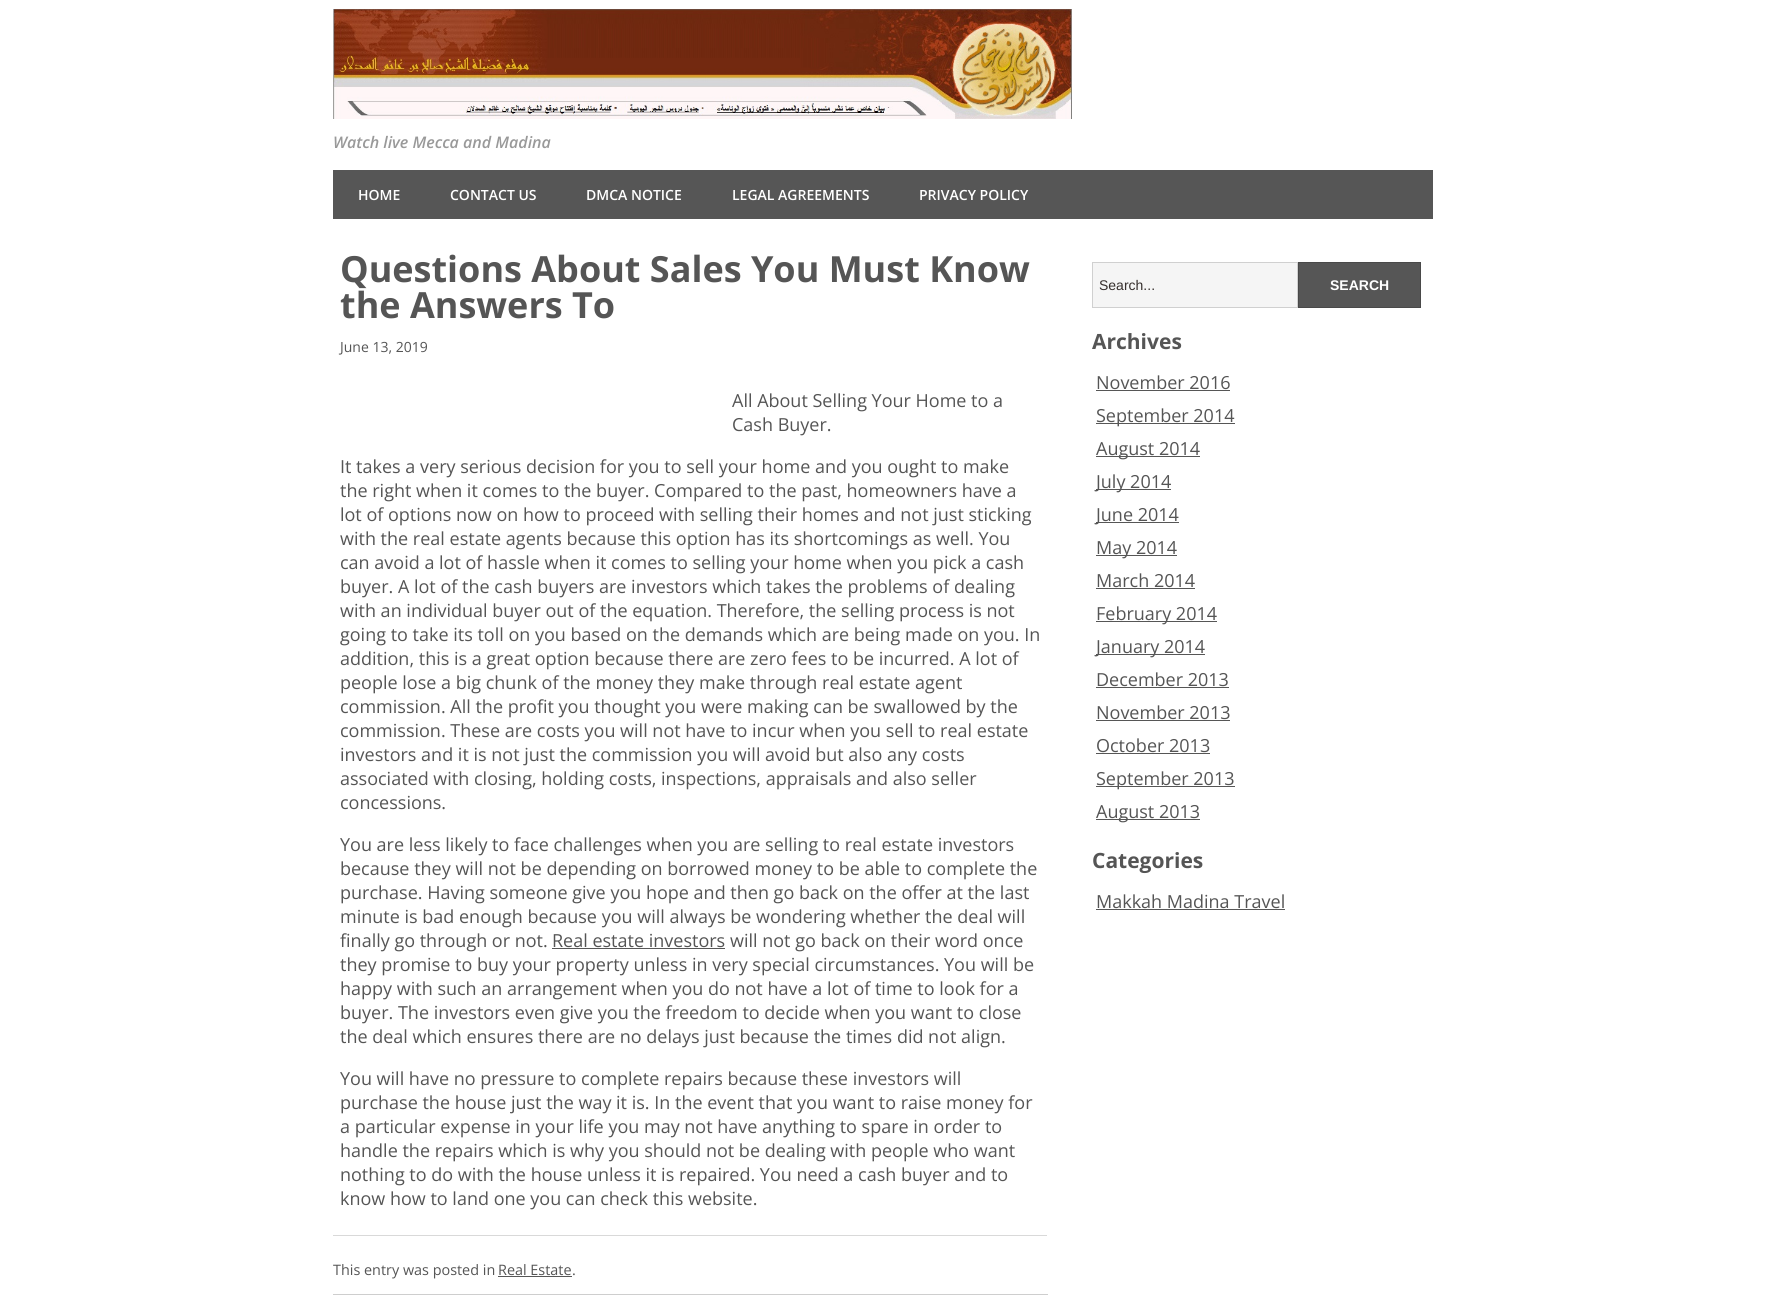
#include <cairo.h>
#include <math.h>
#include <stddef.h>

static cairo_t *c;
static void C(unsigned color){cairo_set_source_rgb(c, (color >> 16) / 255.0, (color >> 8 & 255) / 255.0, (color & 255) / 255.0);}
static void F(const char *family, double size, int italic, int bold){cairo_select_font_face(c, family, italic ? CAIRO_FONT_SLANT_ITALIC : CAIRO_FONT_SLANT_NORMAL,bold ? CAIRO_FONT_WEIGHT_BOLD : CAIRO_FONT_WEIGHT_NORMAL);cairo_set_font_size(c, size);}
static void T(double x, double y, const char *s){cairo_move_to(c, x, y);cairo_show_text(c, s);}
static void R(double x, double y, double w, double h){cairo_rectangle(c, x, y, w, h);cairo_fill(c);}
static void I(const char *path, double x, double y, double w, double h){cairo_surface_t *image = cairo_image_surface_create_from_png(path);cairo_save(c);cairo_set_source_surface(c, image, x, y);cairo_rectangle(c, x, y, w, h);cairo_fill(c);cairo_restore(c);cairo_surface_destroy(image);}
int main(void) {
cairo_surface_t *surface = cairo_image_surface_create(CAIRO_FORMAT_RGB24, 1765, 1295);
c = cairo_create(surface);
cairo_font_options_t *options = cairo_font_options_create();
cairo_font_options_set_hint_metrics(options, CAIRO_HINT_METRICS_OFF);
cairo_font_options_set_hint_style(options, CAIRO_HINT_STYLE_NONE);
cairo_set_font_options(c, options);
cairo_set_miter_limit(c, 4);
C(0xffffff);
cairo_paint(c);
I("1.png",333,9,739,110);
F("Open Sans SemiBold",16,1,0);
C(0x999999);
T(333,148,"Watch live Mecca and Madina");
C(0x565656);
R(333,170,1100,49);
F("Open Sans SemiBold",14,0,0);
C(0xffffff);
T(358,200,"HOME");
T(450,200,"CONTACT US");
T(586,200,"DMCA NOTICE");
T(732,200,"LEGAL AGREEMENTS");
T(919,200,"PRIVACY POLICY");
C(0xd9d9d9);
R(333,1235,714,1);
F("Open Sans",36,0,1);
C(0x555555);
T(340,282,"Questions About Sales You Must Know");
T(340,318,"the Answers To");
F("Open Sans",14,0,0);
T(340,352,"June 13, 2019");
F("Open Sans",18,0,0);
T(732,407,"All About Selling Your Home to a");
T(732,431,"Cash Buyer.");
T(340,473,"It takes a very serious decision for you to sell your home and you ought to make");
T(340,497,"the right when it comes to the buyer. Compared to the past, homeowners have a");
T(340,521,"lot of options now on how to proceed with selling their homes and not just sticking");
T(340,545,"with the real estate agents because this option has its shortcomings as well. You");
T(340,569,"can avoid a lot of hassle when it comes to selling your home when you pick a cash");
T(340,593,"buyer. A lot of the cash buyers are investors which takes the problems of dealing");
T(340,617,"with an individual buyer out of the equation. Therefore, the selling process is not");
T(340,641,"going to take its toll on you based on the demands which are being made on you. In");
T(340,665,"addition, this is a great option because there are zero fees to be incurred. A lot of");
T(340,689,"people lose a big chunk of the money they make through real estate agent");
T(340,713,"commission. All the profit you thought you were making can be swallowed by the");
T(340,737,"commission. These are costs you will not have to incur when you sell to real estate");
T(340,761,"investors and it is not just the commission you will avoid but also any costs");
T(340,785,"associated with closing, holding costs, inspections, appraisals and also seller");
T(340,809,"concessions.");
T(340,851,"You are less likely to face challenges when you are selling to real estate investors");
T(340,875,"because they will not be depending on borrowed money to be able to complete the");
T(340,899,"purchase. Having someone give you hope and then go back on the offer at the last");
T(340,923,"minute is bad enough because you will always be wondering whether the deal will");
T(340,947,"finally go through or not.");
T(552,947,"Real estate investors");
C(0x565656);
R(552,948,173,1);
C(0x555555);
T(730,947,"will not go back on their word once");
T(340,971,"they promise to buy your property unless in very special circumstances. You will be");
T(340,995,"happy with such an arrangement when you do not have a lot of time to look for a");
T(340,1019,"buyer. The investors even give you the freedom to decide when you want to close");
T(340,1043,"the deal which ensures there are no delays just because the times did not align.");
T(340,1085,"You will have no pressure to complete repairs because these investors will");
T(340,1109,"purchase the house just the way it is. In the event that you want to raise money for");
T(340,1133,"a particular expense in your life you may not have anything to spare in order to");
T(340,1157,"handle the repairs which is why you should not be dealing with people who want");
T(340,1181,"nothing to do with the house unless it is repaired. You need a cash buyer and to");
T(340,1205,"know how to land one you can check this website.");
F("Open Sans",14.4,0,0);
T(333,1275,"This entry was posted in");
T(498,1275,"Real Estate");
C(0x565656);
R(498,1276,74,1);
C(0x555555);
T(572,1275,".");
cairo_rectangle(c,333.5,1294.5,714,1);
C(0xcecece);
cairo_set_line_width(c,1);
cairo_stroke(c);
C(0xf5f5f5);
cairo_rectangle(c,1092.5,262.5,205,45);
cairo_fill_preserve(c);
C(0xd0d0d0);
cairo_stroke(c);
F("Liberation Sans",14,0,0);
C(0x362f2d);
T(1099,290,"Search...");
C(0x565656);
cairo_rectangle(c,1298.5,262.5,122,45);
cairo_fill_preserve(c);
C(0x494949);
cairo_stroke(c);
F("Liberation Sans",14,0,1);
C(0xffffff);
T(1330,290,"SEARCH");
F("Open Sans",21,0,1);
C(0x555555);
T(1092,349,"Archives");
F("Open Sans",18,0,0);
T(1096,389,"November 2016");
C(0x565656);
R(1096,390,134,1);
R(1096,423,139,1);
C(0x555555);
T(1096,422,"September 2014");
C(0x565656);
R(1096,456,104,1);
C(0x555555);
T(1096,455,"August 2014");
C(0x565656);
R(1096,489,75,1);
C(0x555555);
T(1096,488,"July 2014");
C(0x565656);
R(1096,522,83,1);
C(0x555555);
T(1096,521,"June 2014");
C(0x565656);
R(1096,555,81,1);
C(0x555555);
T(1096,554,"May 2014");
T(1096,587,"March 2014");
C(0x565656);
R(1096,588,99,1);
R(1096,621,121,1);
C(0x555555);
T(1096,620,"February 2014");
C(0x565656);
R(1096,654,109,1);
C(0x555555);
T(1096,653,"January 2014");
T(1096,686,"December 2013");
C(0x565656);
R(1096,687,133,1);
C(0x555555);
T(1096,719,"November 2013");
C(0x565656);
R(1096,720,134,1);
C(0x555555);
T(1096,752,"October 2013");
C(0x565656);
R(1096,753,114,1);
R(1096,786,139,1);
C(0x555555);
T(1096,785,"September 2013");
C(0x565656);
R(1096,819,104,1);
C(0x555555);
T(1096,818,"August 2013");
F("Open Sans",21,0,1);
T(1092,868,"Categories");
F("Open Sans",18,0,0);
T(1096,908,"Makkah Madina Travel");
C(0x565656);
R(1096,909,189,1);
cairo_surface_write_to_png(surface, "o.png");
cairo_font_options_destroy(options);
cairo_destroy(c);
cairo_surface_destroy(surface);
return 0;
}
